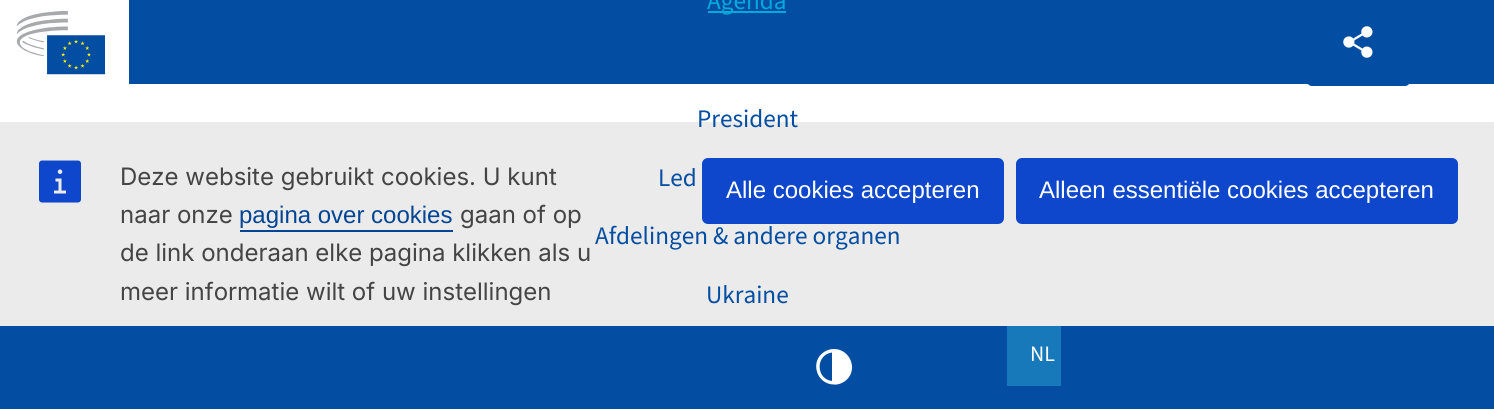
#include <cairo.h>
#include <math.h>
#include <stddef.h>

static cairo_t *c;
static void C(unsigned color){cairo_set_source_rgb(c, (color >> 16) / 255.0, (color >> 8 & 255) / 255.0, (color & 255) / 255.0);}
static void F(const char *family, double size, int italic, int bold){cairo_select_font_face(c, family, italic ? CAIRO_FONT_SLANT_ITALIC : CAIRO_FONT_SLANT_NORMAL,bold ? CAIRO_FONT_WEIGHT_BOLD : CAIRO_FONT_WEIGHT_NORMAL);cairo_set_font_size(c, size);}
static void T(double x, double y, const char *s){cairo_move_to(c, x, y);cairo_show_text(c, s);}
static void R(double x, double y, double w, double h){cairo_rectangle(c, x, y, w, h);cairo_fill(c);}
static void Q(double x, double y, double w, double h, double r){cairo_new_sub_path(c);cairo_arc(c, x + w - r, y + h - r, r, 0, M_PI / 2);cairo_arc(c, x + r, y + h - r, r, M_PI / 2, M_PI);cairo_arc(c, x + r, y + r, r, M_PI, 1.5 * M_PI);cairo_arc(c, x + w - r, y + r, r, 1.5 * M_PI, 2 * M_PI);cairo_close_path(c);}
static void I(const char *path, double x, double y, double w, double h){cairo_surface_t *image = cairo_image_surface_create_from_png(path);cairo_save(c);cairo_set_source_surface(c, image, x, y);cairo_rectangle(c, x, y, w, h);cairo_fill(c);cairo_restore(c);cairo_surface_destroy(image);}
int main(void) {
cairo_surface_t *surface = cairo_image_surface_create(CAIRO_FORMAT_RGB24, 1494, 409);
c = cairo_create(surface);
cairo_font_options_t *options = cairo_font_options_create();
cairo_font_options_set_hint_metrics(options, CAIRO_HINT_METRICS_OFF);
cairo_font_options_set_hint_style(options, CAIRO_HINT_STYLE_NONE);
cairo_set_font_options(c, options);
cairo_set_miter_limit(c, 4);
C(0xffffff);
cairo_paint(c);
C(0x034ea2);
R(129,0,1365,84);
I("1.png",16,11,89,64);
R(0,326,1494,83);
C(0x00aadb);
R(708,11,78,2);
F("Source Sans 3",25.2,0,0);
T(707,9,"Agenda");
C(0xebebeb);
R(0,122,1494,204);
C(0x034ea2);
T(697,127,"President");
T(658,186,"Led");
T(595,244,"Afdelingen & andere organen");
T(706,303,"Ukraine");
C(0xffffff);
cairo_new_path(c);
cairo_move_to(c,834,349);
cairo_curve_to(c,830.5,349,827,350,824,352);
cairo_curve_to(c,809.5,361.5,816.5,384.5,834,384.5);
cairo_curve_to(c,837.5,385,841.5,383.5,844.5,381.5);
cairo_curve_to(c,859,371.5,851,349,834,349);
cairo_close_path(c);
cairo_move_to(c,832,381);
cairo_curve_to(c,815.5,379,815.5,354.5,832,352.5);
cairo_close_path(c);
cairo_fill(c);
C(0x1779ba);
R(1007,326,54,60);
F("Source Sans 3",22,0,0);
C(0xffffff);
T(1030,361,"NL");
C(0x034ea2);
Q(1307,0,103,86,5);
cairo_fill(c);
I("2.png",1343,26,30,32);
I("3.png",39,160,42,43);
F("Inter",24,0,0);
C(0x444444);
T(120,185,"Deze website gebruikt cookies. U kunt");
T(120,223,"naar onze");
F("Liberation Sans",24,0,0);
C(0x004494);
T(239,223,"pagina over cookies");
R(240,230,213,2);
F("Inter",24,0,0);
C(0x444444);
T(460,223,"gaan of op");
T(120,261,"de link onderaan elke pagina klikken als u");
T(120,300,"meer informatie wilt of uw instellingen");
C(0x0e47cb);
Q(702,158,302,66,6);
cairo_fill(c);
F("Liberation Sans",24,0,0);
C(0xffffff);
T(726,198,"Alle cookies accepteren");
C(0x0e47cb);
Q(1016,158,442,66,6);
cairo_fill(c);
C(0xffffff);
T(1039,198,"Alleen essentiële cookies accepteren");
cairo_surface_write_to_png(surface, "o.png");
cairo_font_options_destroy(options);
cairo_destroy(c);
cairo_surface_destroy(surface);
return 0;
}
